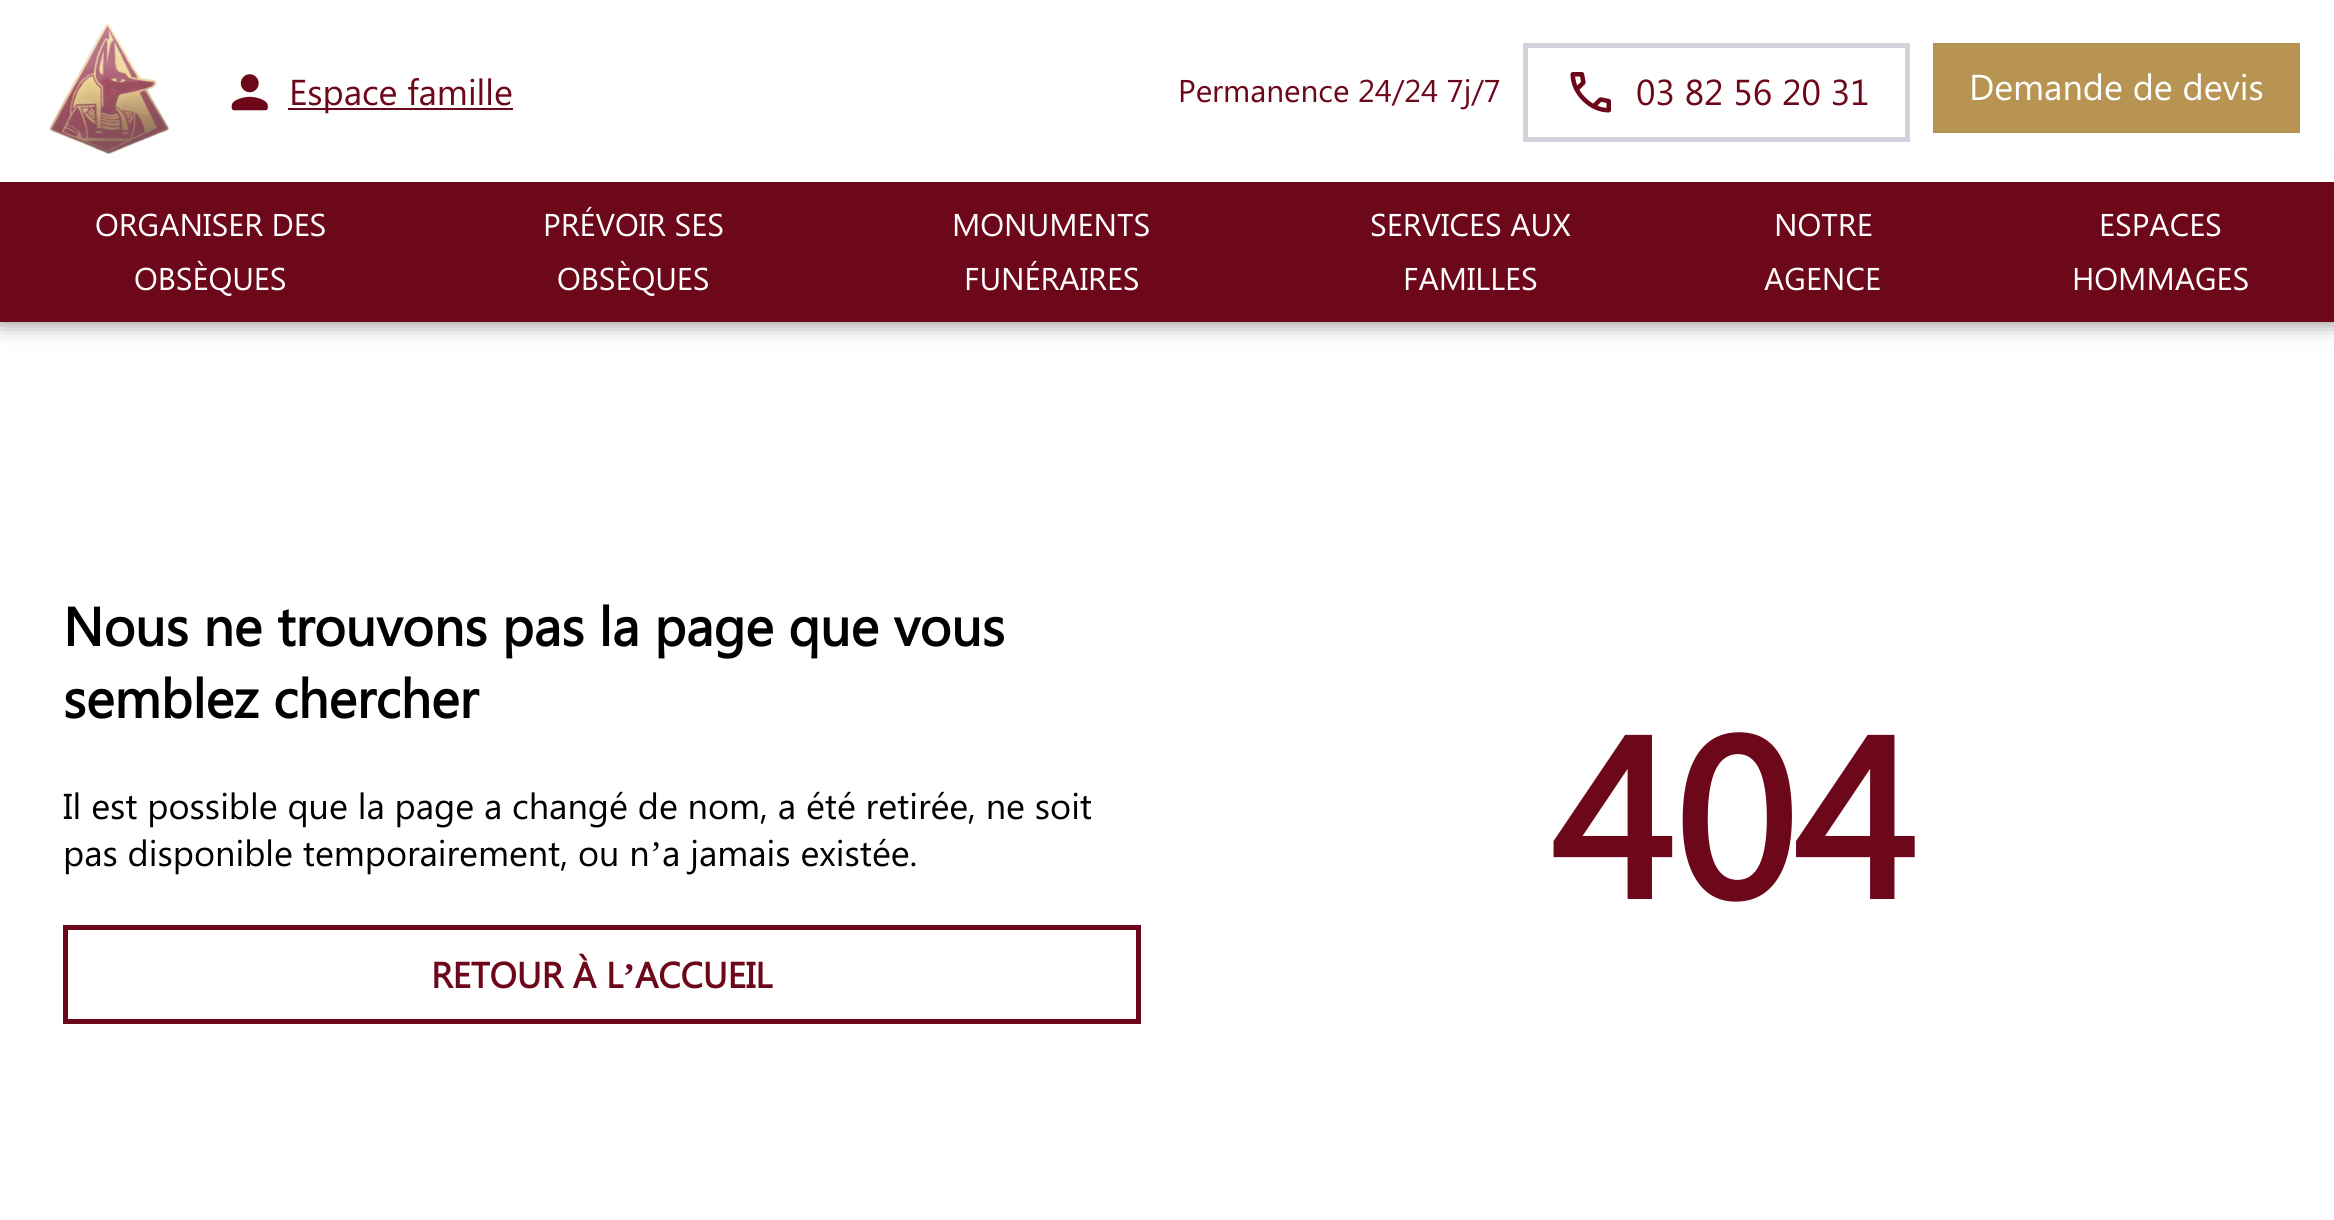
#include <cairo.h>
#include <math.h>
#include <stddef.h>

static cairo_t *c;
static void C(unsigned color){cairo_set_source_rgb(c, (color >> 16) / 255.0, (color >> 8 & 255) / 255.0, (color & 255) / 255.0);}
static void F(const char *family, double size, int italic, int bold){cairo_select_font_face(c, family, italic ? CAIRO_FONT_SLANT_ITALIC : CAIRO_FONT_SLANT_NORMAL,bold ? CAIRO_FONT_WEIGHT_BOLD : CAIRO_FONT_WEIGHT_NORMAL);cairo_set_font_size(c, size);}
static void T(double x, double y, const char *s){cairo_move_to(c, x, y);cairo_show_text(c, s);}
static void R(double x, double y, double w, double h){cairo_rectangle(c, x, y, w, h);cairo_fill(c);}
static void Q(double x, double y, double w, double h, double r){cairo_new_sub_path(c);cairo_arc(c, x + w - r, y + h - r, r, 0, M_PI / 2);cairo_arc(c, x + r, y + h - r, r, M_PI / 2, M_PI);cairo_arc(c, x + r, y + r, r, M_PI, 1.5 * M_PI);cairo_arc(c, x + w - r, y + r, r, 1.5 * M_PI, 2 * M_PI);cairo_close_path(c);}
static void S(double x, double y, double w, double h, double r, double blur, double alpha){cairo_push_group_with_content(c, CAIRO_CONTENT_ALPHA);cairo_set_operator(c, CAIRO_OPERATOR_SOURCE);for (int i = 15; i >= -15 && fmin(w, h) + blur * i / 3 > 0; i -= 2) {double e = blur * i / 6;cairo_set_source_rgba(c, 0, 0, 0, alpha * erfc((i - 1) / 8.5) / 2);Q(x - e, y - e, w + 2 * e, h + 2 * e, fmax(0, fmin(r + e + blur * .6, fmin(w, h) / 2 + e)));cairo_fill(c);}cairo_pattern_t *soft = cairo_pop_group(c);cairo_mask(c, soft);cairo_pattern_destroy(soft);}
static void I(const char *path, double x, double y, double w, double h){cairo_surface_t *image = cairo_image_surface_create_from_png(path);cairo_save(c);cairo_set_source_surface(c, image, x, y);cairo_rectangle(c, x, y, w, h);cairo_fill(c);cairo_restore(c);cairo_surface_destroy(image);}
int main(void) {
cairo_surface_t *surface = cairo_image_surface_create(CAIRO_FORMAT_RGB24, 2334, 1220);
c = cairo_create(surface);
cairo_font_options_t *options = cairo_font_options_create();
cairo_font_options_set_hint_metrics(options, CAIRO_HINT_METRICS_OFF);
cairo_font_options_set_hint_style(options, CAIRO_HINT_STYLE_NONE);
cairo_set_font_options(c, options);
cairo_set_miter_limit(c, 4);
C(0xffffff);
cairo_paint(c);
C(0x000000);
S(0,182,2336,140,0,11,.5);
C(0xffffff);
R(0,159,2334,23);
I("1.png",49,23,120,131);
I("2.png",231,74,37,37);
C(0x6d071a);
R(288,108,225,2);
F("Segoe UI",36,0,0);
T(289,105,"Espace famille");
F("Segoe UI",31.5,0,0);
T(1178,102,"Permanence 24/24 7j/7");
cairo_rectangle(c,1525.5,45.5,382,94);
C(0xd0d3dc);
cairo_set_line_width(c,5);
cairo_stroke(c);
I("3.png",1570,72,41,41);
F("Segoe UI",36,0,0);
C(0x6d071a);
T(1636,105,"03 82 56 20 31");
C(0xb79452);
R(1933,43,367,90);
C(0xffffff);
T(1969,100,"Demande de devis");
C(0x6d071a);
R(0,182,2334,140);
F("Segoe UI",31.5,0,0);
C(0xffffff);
T(95,236,"ORGANISER DES");
T(134,290,"OBSÈQUES");
T(543,236,"PRÉVOIR SES");
T(557,290,"OBSÈQUES");
T(952,236,"MONUMENTS");
T(964,290,"FUNÉRAIRES");
T(1370,236,"SERVICES AUX");
T(1403,290,"FAMILLES");
T(1774,236,"NOTRE");
T(1764,290,"AGENCE");
T(2099,236,"ESPACES");
T(2072,290,"HOMMAGES");
F("Segoe UI",54,0,1);
C(0x000000);
T(63,646,"Nous ne trouvons pas la page que vous");
T(63,718,"semblez chercher");
F("Segoe UI",36,0,0);
T(63,819,"Il est possible que la page a changé de nom, a été retirée, ne soit");
T(63,866,"pas disponible temporairement, ou n");
F("Liberation Serif",36,0,0);
T(650,866,"’");
F("Segoe UI",36,0,0);
T(662,866,"a jamais existée.");
cairo_rectangle(c,65.5,927.5,1073,94);
C(0x6d071a);
cairo_stroke(c);
F("Segoe UI",36,0,1);
T(431,988,"RETOUR À L");
F("Liberation Serif",36,0,1);
T(623,988,"’");
F("Segoe UI",36,0,1);
T(635,988,"ACCUEIL");
F("Segoe UI",225,0,1);
T(1552,899,"404");
cairo_surface_write_to_png(surface, "o.png");
cairo_font_options_destroy(options);
cairo_destroy(c);
cairo_surface_destroy(surface);
return 0;
}
